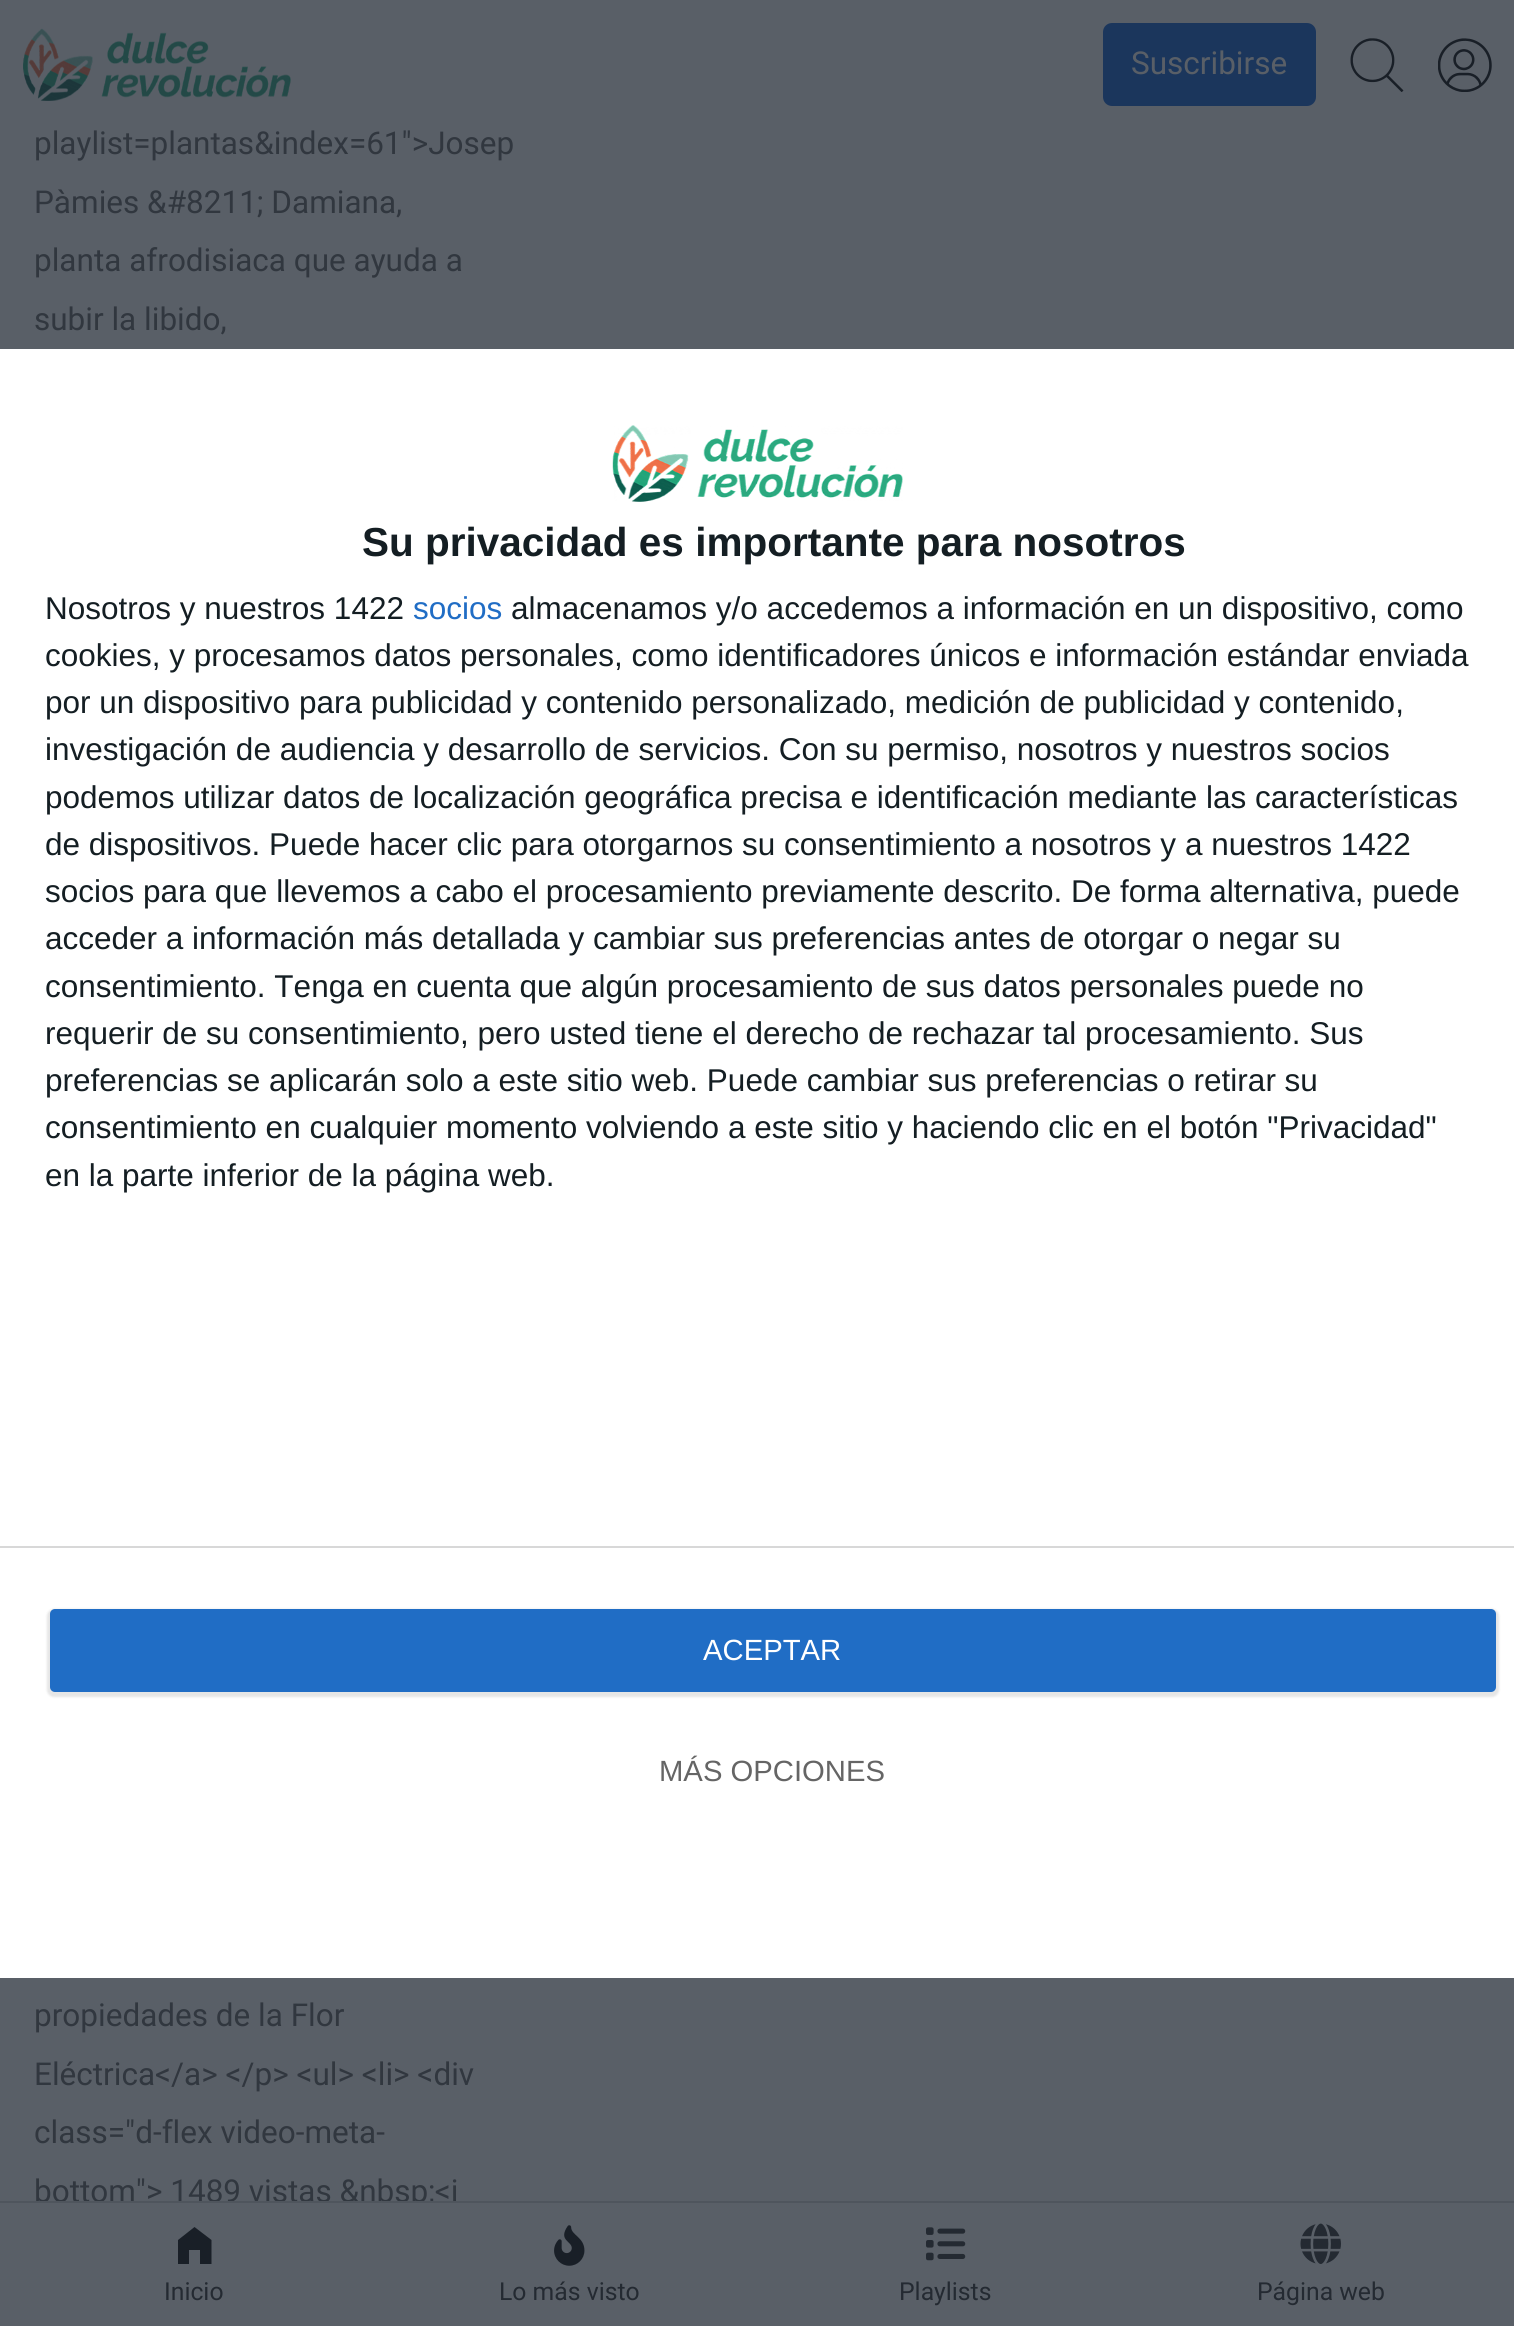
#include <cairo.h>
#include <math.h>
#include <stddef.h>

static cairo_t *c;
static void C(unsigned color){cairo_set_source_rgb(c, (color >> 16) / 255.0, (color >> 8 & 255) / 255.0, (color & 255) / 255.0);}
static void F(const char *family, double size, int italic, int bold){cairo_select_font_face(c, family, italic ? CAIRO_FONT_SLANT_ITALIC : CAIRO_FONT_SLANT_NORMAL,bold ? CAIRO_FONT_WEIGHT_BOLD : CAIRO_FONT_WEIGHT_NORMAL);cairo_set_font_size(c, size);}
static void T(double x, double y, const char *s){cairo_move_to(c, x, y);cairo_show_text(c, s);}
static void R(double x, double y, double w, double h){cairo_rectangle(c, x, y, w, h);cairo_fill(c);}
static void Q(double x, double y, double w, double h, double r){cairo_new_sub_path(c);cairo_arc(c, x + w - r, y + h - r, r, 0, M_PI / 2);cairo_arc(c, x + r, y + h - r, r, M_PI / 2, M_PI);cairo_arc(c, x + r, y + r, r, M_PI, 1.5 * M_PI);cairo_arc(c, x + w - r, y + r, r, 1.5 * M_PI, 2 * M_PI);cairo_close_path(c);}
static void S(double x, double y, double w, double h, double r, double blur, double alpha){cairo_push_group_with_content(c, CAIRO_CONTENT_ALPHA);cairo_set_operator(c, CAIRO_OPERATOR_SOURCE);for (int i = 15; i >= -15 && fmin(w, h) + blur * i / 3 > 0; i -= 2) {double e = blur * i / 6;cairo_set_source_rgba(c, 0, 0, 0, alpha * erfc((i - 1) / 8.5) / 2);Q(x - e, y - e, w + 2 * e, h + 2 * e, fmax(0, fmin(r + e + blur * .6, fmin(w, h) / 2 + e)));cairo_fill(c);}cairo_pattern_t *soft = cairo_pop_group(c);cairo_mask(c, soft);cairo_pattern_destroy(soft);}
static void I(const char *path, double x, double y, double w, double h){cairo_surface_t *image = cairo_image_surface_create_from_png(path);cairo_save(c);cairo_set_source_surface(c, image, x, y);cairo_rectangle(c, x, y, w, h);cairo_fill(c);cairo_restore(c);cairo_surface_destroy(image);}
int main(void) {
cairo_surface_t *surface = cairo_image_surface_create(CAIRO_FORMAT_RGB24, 1514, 2326);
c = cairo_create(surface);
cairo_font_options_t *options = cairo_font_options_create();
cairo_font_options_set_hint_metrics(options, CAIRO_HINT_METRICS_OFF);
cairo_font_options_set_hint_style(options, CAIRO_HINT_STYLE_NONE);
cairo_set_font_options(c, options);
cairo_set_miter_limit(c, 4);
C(0x595f67);
cairo_paint(c);
I("1.png",23,28,268,73);
C(0x1b365c);
Q(1104,24,211,81,8);
cairo_fill_preserve(c);
cairo_stroke(c);
F("Roboto",31.5,0,0);
C(0x595f67);
T(1131,74,"Suscribirse");
I("2.png",1350,38,54,54);
I("3.png",1438,38,54,54);
C(0x31373f);
T(34,154,"playlist=plantas&index=61\">Josep");
T(34,213,"Pàmies &#8211; Damiana,");
T(34,271,"planta afrodisiaca que ayuda a");
T(34,330,"subir la libido,");
T(34,2026,"propiedades de la Flor");
T(34,2085,"Eléctrica</a> </p> <ul> <li> <div");
T(34,2143,"class=\"d-flex video-meta-");
T(34,2202,"bottom\"> 1489 vistas &nbsp;<i");
C(0xffffff);
R(0,349,1514,1629);
I("4.png",612,425,291,77);
F("Liberation Sans",40.5,0,1);
C(0x141e23);
T(362,556,"Su privacidad es importante para nosotros");
F("Liberation Sans",31.5,0,0);
T(45,619,"Nosotros y nuestros 1422");
C(0x206dc5);
T(413,619,"socios");
C(0x141e23);
T(511,619,"almacenamos y/o accedemos a información en un dispositivo, como");
T(45,666,"cookies, y procesamos datos personales, como identificadores únicos e información estándar enviada");
T(45,713,"por un dispositivo para publicidad y contenido personalizado, medición de publicidad y contenido,");
T(45,760,"investigación de audiencia y desarrollo de servicios. Con su permiso, nosotros y nuestros socios");
T(45,808,"podemos utilizar datos de localización geográfica precisa e identificación mediante las características");
T(45,855,"de dispositivos. Puede hacer clic para otorgarnos su consentimiento a nosotros y a nuestros 1422");
T(45,902,"socios para que llevemos a cabo el procesamiento previamente descrito. De forma alternativa, puede");
T(45,949,"acceder a información más detallada y cambiar sus preferencias antes de otorgar o negar su");
T(45,997,"consentimiento. Tenga en cuenta que algún procesamiento de sus datos personales puede no");
T(45,1044,"requerir de su consentimiento, pero usted tiene el derecho de rechazar tal procesamiento. Sus");
T(45,1091,"preferencias se aplicarán solo a este sitio web. Puede cambiar sus preferencias o retirar su");
T(45,1138,"consentimiento en cualquier momento volviendo a este sitio y haciendo clic en el botón \"Privacidad\"");
T(45,1186,"en la parte inferior de la página web.");
C(0xd8d8d8);
R(0,1546,1514,2);
C(0x000000);
S(47,1609,1452,88,7,1,.1);
C(0x206dc5);
Q(50,1609,1446,83,5);
cairo_fill(c);
F("Liberation Sans",29.25,0,0);
C(0xffffff);
T(703,1660,"ACEPTAR");
C(0x656565);
T(659,1781,"MÁS OPCIONES");
C(0x595f67);
R(412,2203,21,6);
C(0x4f555d);
R(0,2201,1514,2);
C(0x191f27);
cairo_new_path(c);
cairo_move_to(c,194.5,2227);
cairo_line_to(c,178,2240);
cairo_line_to(c,178,2264);
cairo_line_to(c,189,2264);
cairo_line_to(c,189,2250);
cairo_line_to(c,200,2250);
cairo_line_to(c,200,2264);
cairo_line_to(c,211.5,2264);
cairo_line_to(c,211.5,2240);
cairo_close_path(c);
cairo_fill(c);
F("Roboto",24.75,0,0);
C(0x242a32);
T(164,2300,"Inicio");
I("5.png",554,2225,31,41);
T(499,2300,"Lo más visto");
I("6.png",926,2227,40,34);
T(899,2300,"Playlists");
I("7.png",1300,2223,41,41);
T(1257,2300,"Página web");
cairo_surface_write_to_png(surface, "o.png");
cairo_font_options_destroy(options);
cairo_destroy(c);
cairo_surface_destroy(surface);
return 0;
}
